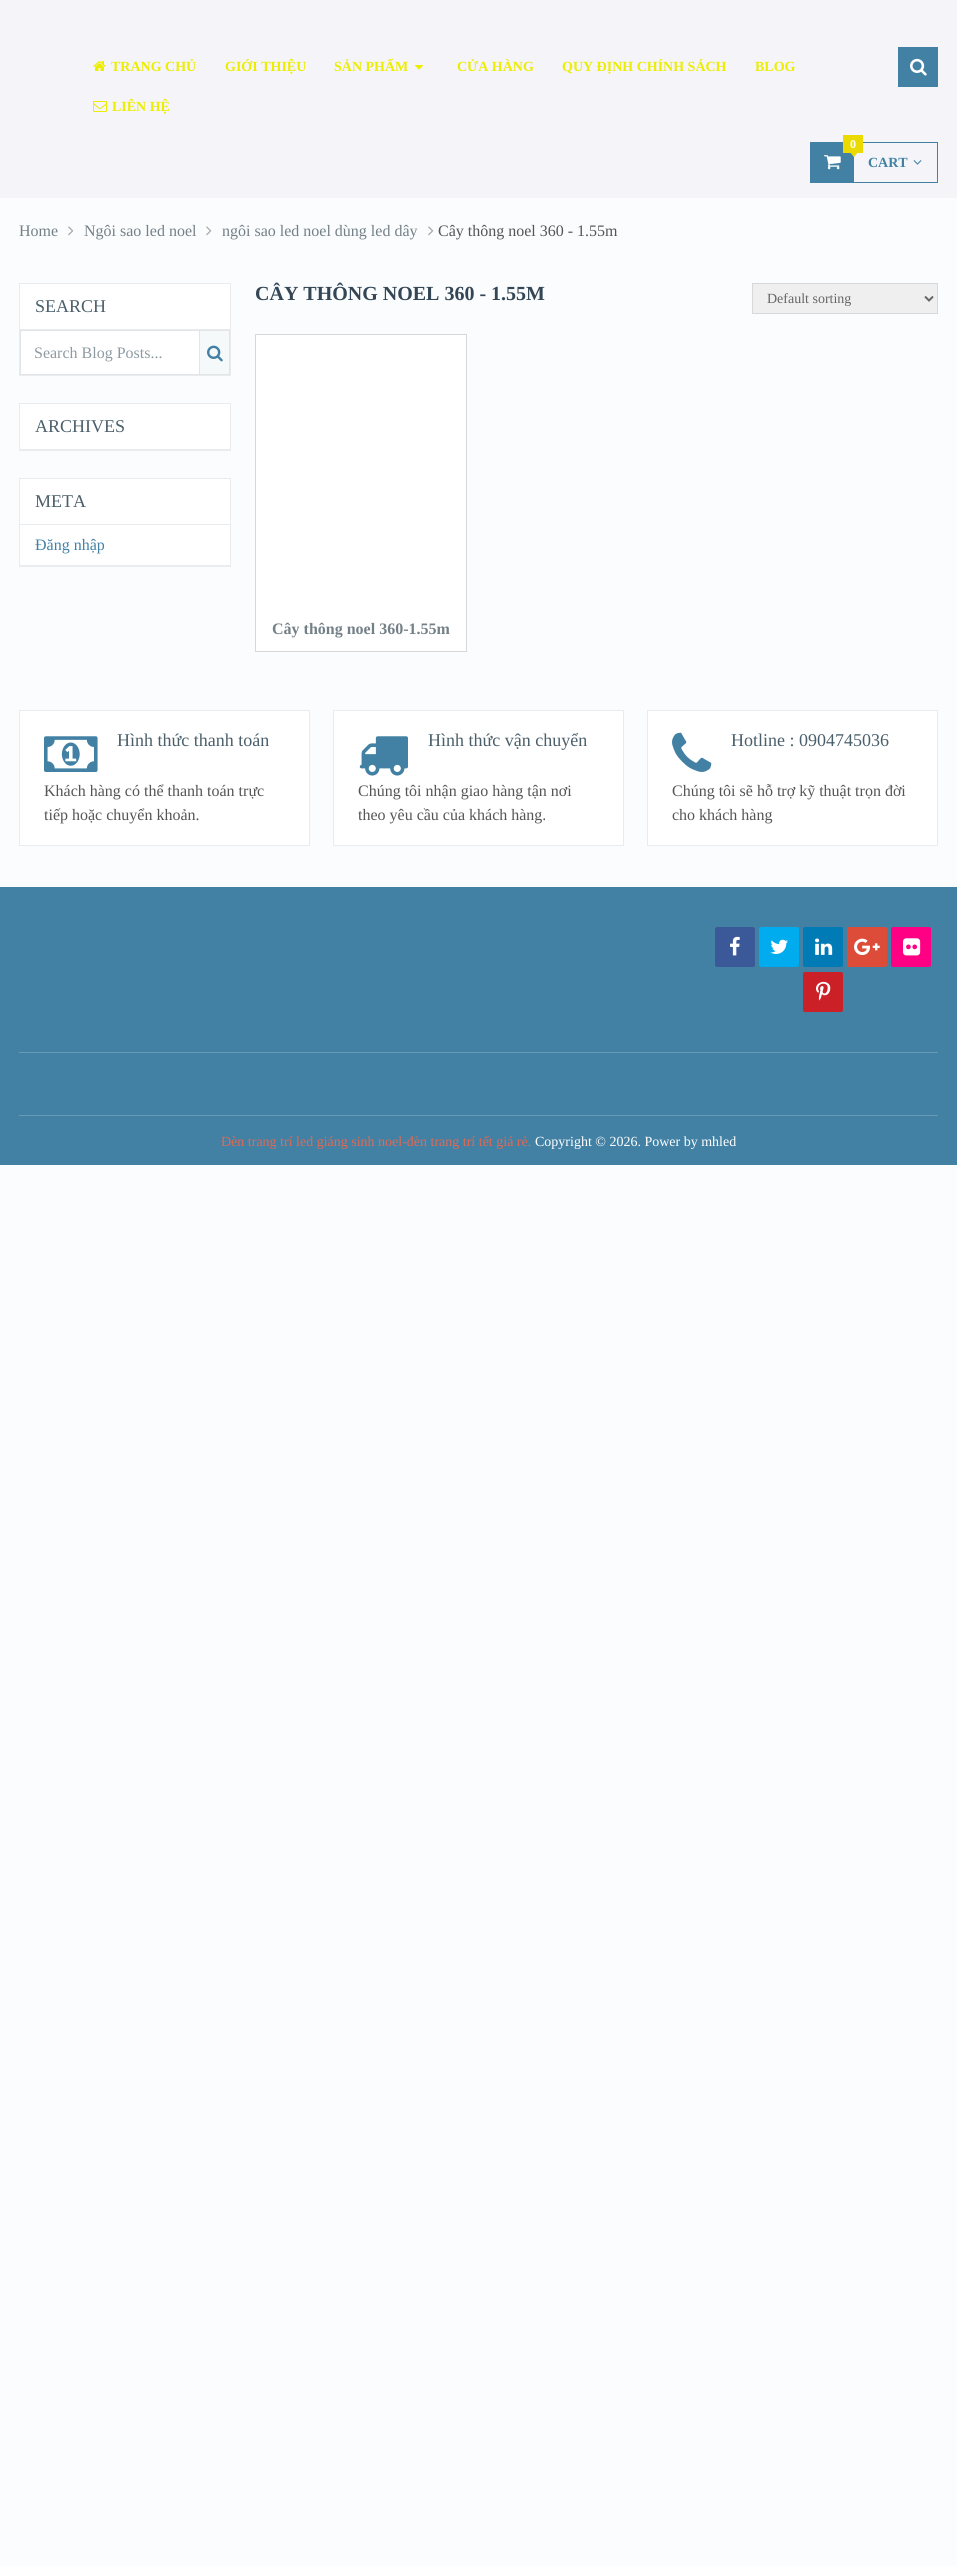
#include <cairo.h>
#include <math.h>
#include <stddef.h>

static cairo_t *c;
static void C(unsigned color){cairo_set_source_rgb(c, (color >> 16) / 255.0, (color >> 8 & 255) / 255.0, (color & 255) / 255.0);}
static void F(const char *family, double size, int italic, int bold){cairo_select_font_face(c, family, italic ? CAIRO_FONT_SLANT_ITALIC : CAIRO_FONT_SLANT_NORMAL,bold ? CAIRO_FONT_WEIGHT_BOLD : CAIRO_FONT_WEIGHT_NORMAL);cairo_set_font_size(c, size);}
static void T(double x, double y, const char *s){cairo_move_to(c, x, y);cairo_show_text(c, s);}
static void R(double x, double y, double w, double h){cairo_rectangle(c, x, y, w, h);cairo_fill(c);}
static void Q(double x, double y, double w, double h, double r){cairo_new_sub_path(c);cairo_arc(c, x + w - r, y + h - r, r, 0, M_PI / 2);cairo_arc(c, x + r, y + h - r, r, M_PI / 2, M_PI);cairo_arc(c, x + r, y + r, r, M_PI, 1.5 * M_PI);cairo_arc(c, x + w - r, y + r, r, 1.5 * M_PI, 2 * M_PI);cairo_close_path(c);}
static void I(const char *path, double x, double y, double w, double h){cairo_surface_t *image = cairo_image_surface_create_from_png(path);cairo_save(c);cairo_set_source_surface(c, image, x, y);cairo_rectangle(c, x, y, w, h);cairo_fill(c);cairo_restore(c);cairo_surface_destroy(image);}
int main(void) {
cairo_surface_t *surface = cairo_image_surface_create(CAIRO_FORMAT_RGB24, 957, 2566);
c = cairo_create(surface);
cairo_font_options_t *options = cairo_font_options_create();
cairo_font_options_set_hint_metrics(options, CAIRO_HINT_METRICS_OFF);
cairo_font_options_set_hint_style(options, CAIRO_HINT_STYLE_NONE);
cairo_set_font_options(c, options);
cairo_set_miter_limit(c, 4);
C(0xfafcfd);
cairo_paint(c);
C(0xf4f4f9);
R(0,0,957,198);
I("1.png",93,61,13,10);
F("Liberation Serif",14,0,1);
C(0xeded00);
T(111,71,"TRANG CHỦ");
T(225,71,"GIỚI THIỆU");
T(334,71,"SẢN PHẨM");
I("2.png",415,65,8,5);
T(457,71,"CỬA HÀNG");
T(562,71,"QUY ĐỊNH CHÍNH SÁCH");
T(755,71,"BLOG");
I("3.png",93,101,14,11);
T(112,111,"LIÊN HỆ");
C(0x4281a4);
R(898,47,40,40);
I("4.png",910,58,17,18);
cairo_rectangle(c,810.5,142.5,127,40);
cairo_set_line_width(c,1);
cairo_stroke(c);
cairo_rectangle(c,810.5,142.5,43,40);
cairo_fill_preserve(c);
cairo_stroke(c);
C(0xeada00);
R(843,135,20,18);
F("Liberation Serif",12,0,1);
C(0xffffff);
T(850,148,"0");
C(0xeada00);
cairo_new_path(c);
cairo_move_to(c,849,151);
cairo_line_to(c,859,151);
cairo_line_to(c,854,157);
cairo_close_path(c);
cairo_fill(c);
I("5.png",824,155,17,15);
F("Liberation Serif",14,0,1);
C(0x4281a4);
T(868,167,"CART");
I("6.png",913,160,9,5);
F("Liberation Serif",16,0,0);
C(0x748087);
T(19,236,"Home");
I("7.png",68,226,6,10);
T(84,236,"Ngôi sao led noel");
I("7.png",206,226,6,10);
T(222,236,"ngôi sao led noel dùng led dây");
I("7.png",428,226,6,10);
C(0x555555);
T(438,236,"Cây thông noel 360 - 1.55m");
C(0xffffff);
R(20,284,210,90);
cairo_rectangle(c,19.5,283.5,211,92);
C(0xeaebec);
cairo_stroke(c);
R(20,329,210,1);
F("Liberation Serif",18,0,0);
C(0x4b5f6b);
T(35,312,"SEARCH");
C(0xe0e5e7);
R(20,330,179,1);
R(20,374,179,1);
R(20,330,1,45);
F("Liberation Serif",16,0,0);
C(0x8e9aa2);
T(34,358,"Search Blog Posts...");
C(0xf6f9fa);
cairo_rectangle(c,199.5,330.5,30,44);
cairo_fill_preserve(c);
C(0xe0e5e7);
cairo_stroke(c);
I("8.png",207,345,16,17);
C(0xffffff);
R(20,404,210,45);
cairo_rectangle(c,19.5,403.5,211,47);
C(0xeaebec);
cairo_stroke(c);
R(20,449,210,1);
F("Liberation Serif",18,0,0);
C(0x4b5f6b);
T(35,432,"ARCHIVES");
C(0xffffff);
R(20,479,210,86);
cairo_rectangle(c,19.5,478.5,211,88);
C(0xeaebec);
cairo_stroke(c);
R(20,524,210,1);
C(0x4b5f6b);
T(35,507,"META");
C(0xeaebec);
R(20,565,210,1);
F("Liberation Serif",16,0,0);
C(0x4281a4);
T(35,550,"Đăng nhập");
F("Liberation Serif",20,0,1);
C(0x344655);
T(255,300,"CÂY THÔNG NOEL 360 - 1.55M");
C(0xefefef);
cairo_rectangle(c,752.5,283.5,185,30);
cairo_fill_preserve(c);
C(0xd8d8d8);
cairo_stroke(c);
cairo_new_path(c);
cairo_move_to(c,925,296.5);
cairo_line_to(c,929,300.5);
cairo_line_to(c,933,296.5);
C(0x666666);
cairo_set_line_width(c,2);
cairo_stroke(c);
F("Liberation Serif",14,0,0);
T(767,303,"Default sorting");
C(0xffffff);
cairo_rectangle(c,255.5,334.5,211,317);
cairo_fill_preserve(c);
C(0xd5d8db);
cairo_set_line_width(c,1);
cairo_stroke(c);
F("Liberation Serif",16,0,1);
C(0x748087);
T(272,634,"Cây thông noel 360-1.55m");
C(0xffffff);
cairo_rectangle(c,19.5,710.5,290,135);
cairo_fill_preserve(c);
C(0xeaebec);
cairo_stroke(c);
F("Liberation Serif",18,0,0);
C(0x4b5f6b);
T(117,746,"Hình thức thanh toán");
F("Liberation Serif",16,0,0);
C(0x555555);
T(44,796,"Khách hàng có thể thanh toán trực");
T(44,820,"tiếp hoặc chuyển khoản.");
I("9.png",44,736,54,36);
C(0xffffff);
cairo_rectangle(c,333.5,710.5,290,135);
cairo_fill_preserve(c);
C(0xeaebec);
cairo_stroke(c);
F("Liberation Serif",18,0,0);
C(0x4b5f6b);
T(428,746,"Hình thức vận chuyển");
F("Liberation Serif",16,0,0);
C(0x555555);
T(358,796,"Chúng tôi nhận giao hàng tận nơi");
T(358,820,"theo yêu cầu của khách hàng.");
I("10.png",359,736,49,40);
C(0xffffff);
cairo_rectangle(c,647.5,710.5,290,135);
cairo_fill_preserve(c);
C(0xeaebec);
cairo_stroke(c);
I("11.png",672,732,40,40);
F("Liberation Serif",18,0,0);
C(0x4b5f6b);
T(731,746,"Hotline : 0904745036");
F("Liberation Serif",16,0,0);
C(0x555555);
T(672,796,"Chúng tôi sẽ hỗ trợ kỹ thuật trọn đời");
T(672,820,"cho khách hàng");
C(0x4281a4);
R(0,887,957,278);
C(0x689ab6);
R(19,1052,919,1);
C(0x3b5998);
Q(715,927,40,40,2);
cairo_fill(c);
I("12.png",730,936,10,20);
C(0x00aced);
Q(759,927,40,40,2);
cairo_fill(c);
I("13.png",770,939,18,15);
C(0x007bb6);
Q(803,927,40,40,2);
cairo_fill(c);
I("14.png",815,938,18,17);
C(0xdd4b39);
Q(847,927,40,40,2);
cairo_fill(c);
I("15.png",854,938,26,17);
C(0xff0084);
Q(891,927,40,40,2);
cairo_fill(c);
I("16.png",903,938,18,18);
C(0xcb2027);
Q(803,972,40,40,2);
cairo_fill(c);
I("17.png",816,981,15,20);
C(0x689ab6);
R(19,1115,919,1);
F("Liberation Serif",14,0,0);
C(0xdf6955);
T(221,1146,"Đèn trang trí led giáng sinh noel-đèn trang trí tết giá rẻ.");
C(0xffffff);
T(535,1146,"Copyright © 2026. Power by mhled");
cairo_surface_write_to_png(surface, "o.png");
cairo_font_options_destroy(options);
cairo_destroy(c);
cairo_surface_destroy(surface);
return 0;
}
